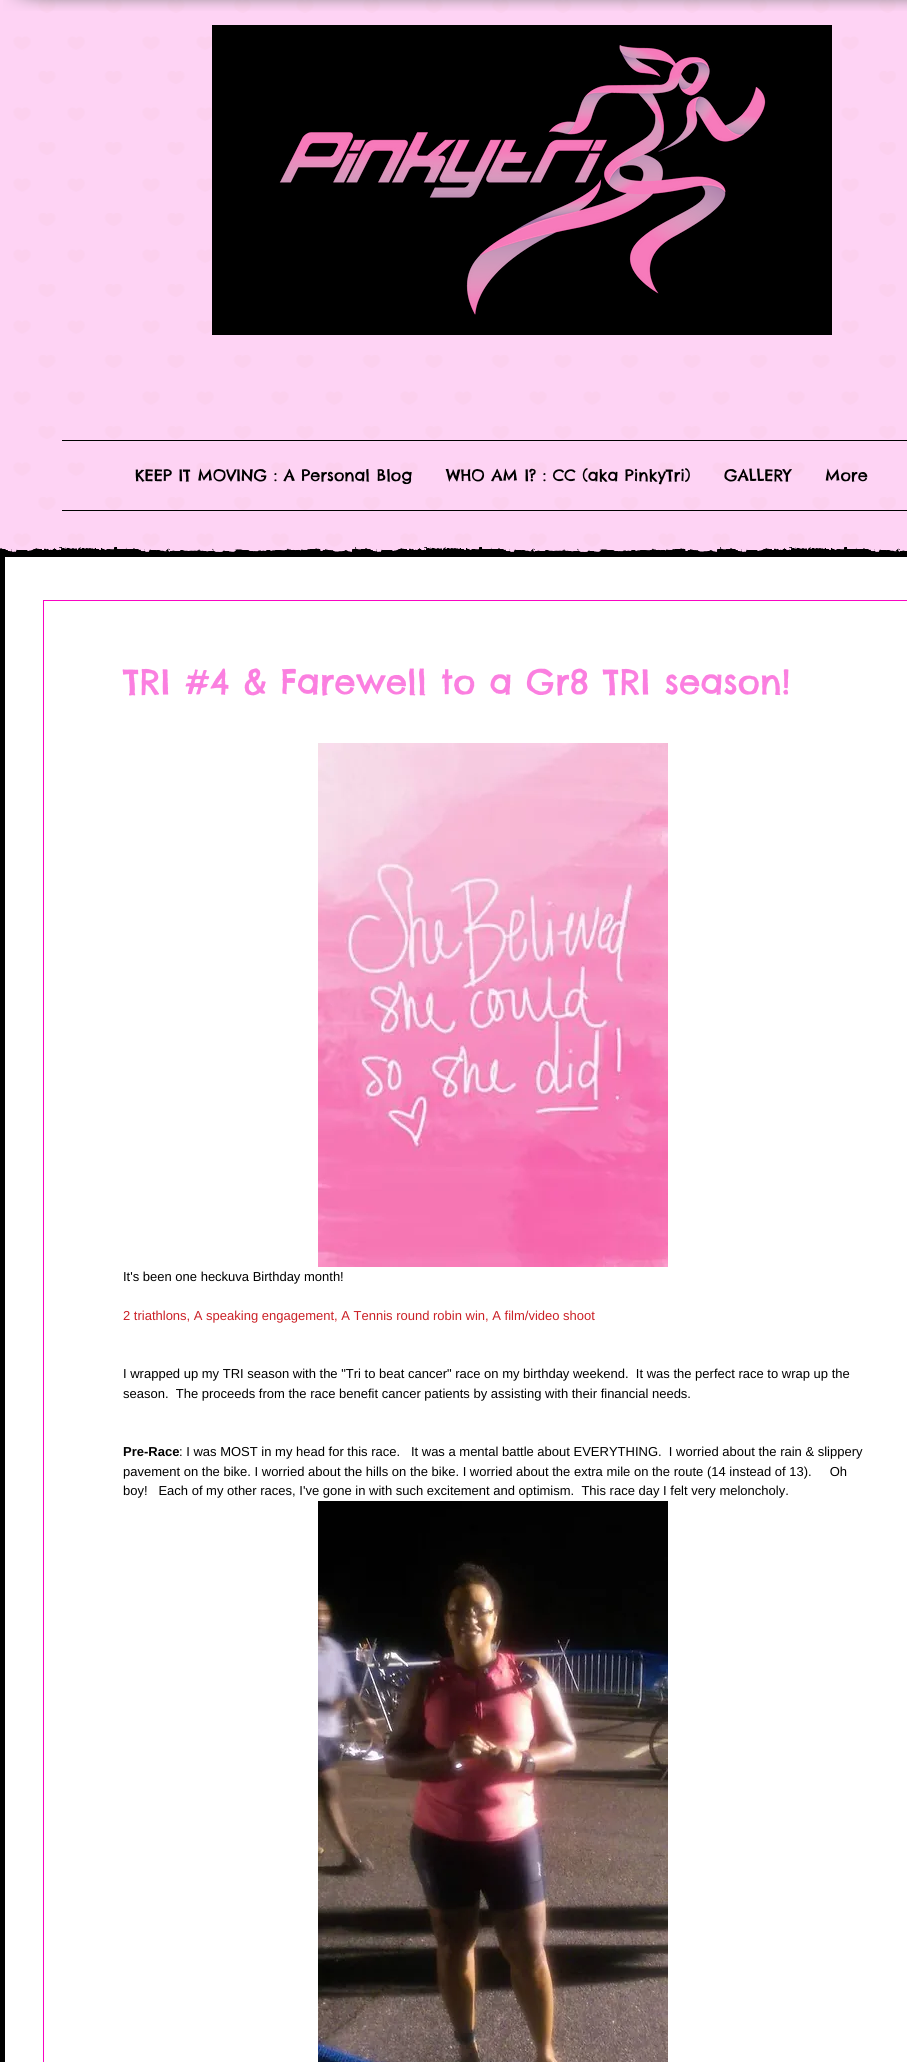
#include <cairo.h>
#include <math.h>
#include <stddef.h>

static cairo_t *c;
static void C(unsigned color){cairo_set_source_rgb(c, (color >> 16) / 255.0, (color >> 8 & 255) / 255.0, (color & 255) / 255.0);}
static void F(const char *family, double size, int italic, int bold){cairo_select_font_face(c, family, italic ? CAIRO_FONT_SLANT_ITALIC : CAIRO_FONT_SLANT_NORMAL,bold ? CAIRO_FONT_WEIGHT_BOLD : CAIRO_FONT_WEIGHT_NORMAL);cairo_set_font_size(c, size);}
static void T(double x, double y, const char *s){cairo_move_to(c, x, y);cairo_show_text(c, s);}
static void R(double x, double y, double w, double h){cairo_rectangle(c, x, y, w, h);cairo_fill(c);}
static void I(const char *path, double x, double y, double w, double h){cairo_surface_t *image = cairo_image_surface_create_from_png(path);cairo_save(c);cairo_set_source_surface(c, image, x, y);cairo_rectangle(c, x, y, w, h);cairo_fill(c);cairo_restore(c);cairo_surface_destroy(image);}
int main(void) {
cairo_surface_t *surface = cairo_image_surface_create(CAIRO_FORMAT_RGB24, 907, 2062);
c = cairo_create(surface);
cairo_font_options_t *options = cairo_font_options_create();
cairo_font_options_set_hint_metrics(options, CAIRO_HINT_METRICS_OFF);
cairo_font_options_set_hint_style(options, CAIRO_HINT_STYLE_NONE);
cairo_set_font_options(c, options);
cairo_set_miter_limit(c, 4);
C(0xfdaaea);
cairo_paint(c);
I("1.png",13,0,883,547);
I("2.png",3,0,97,11);
I("3.png",100,0,780,11);
I("4.png",880,0,27,11);
cairo_set_source_rgba(c,1,1,1,0.48);
R(0,0,907,552);
C(0x000000);
R(216,29,612,302);
cairo_new_path(c);
cairo_move_to(c,214,27);
cairo_line_to(c,830,27);
cairo_line_to(c,830,333);
cairo_line_to(c,214,333);
cairo_close_path(c);
cairo_set_line_width(c,4);
cairo_stroke(c);
I("5.png",279,45,487,270);
R(62,440,845,1);
R(62,510,845,1);
F("Chelsea Market",16,0,0);
T(135,481,"KEEP IT MOVING : A Personal Blog");
T(446,481,"WHO AM I? : CC (aka PinkyTri)");
T(724,481,"GALLERY");
T(825,481,"More");
C(0xffffff);
R(5,557,902,1505);
I("6.png",0,547,907,10);
C(0x000000);
R(0,557,5,1505);
cairo_rectangle(c,43.5,600.5,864,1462);
C(0xf904c3);
cairo_set_line_width(c,1);
cairo_stroke(c);
F("Chelsea Market",34,0,0);
C(0xfb7fe0);
T(123,694,"TRI #4 & Farewell to a Gr8 TRI season!");
I("7.png",318,743,350,524);
F("Liberation Sans",13,0,0);
C(0x000000);
T(123,1281,"It's been one heckuva Birthday month!");
C(0xcb2026);
T(123,1320,"2 triathlons, A speaking engagement, A Tennis round robin win, A film/video shoot");
C(0x000000);
T(123,1378,"I wrapped up my TRI season with the \"Tri to beat cancer\" race on my birthday weekend.  It was the perfect race to wrap up the");
T(123,1398,"season.  The proceeds from the race benefit cancer patients by assisting with their financial needs.");
F("Liberation Sans",13,0,1);
T(123,1456,"Pre-Race");
F("Liberation Sans",13,0,0);
T(179,1456,": I was MOST in my head for this race.   It was a mental battle about EVERYTHING.  I worried about the rain & slippery");
T(123,1476,"pavement on the bike. I worried about the hills on the bike. I worried about the extra mile on the route (14 instead of 13).     Oh");
T(123,1495,"boy!   Each of my other races, I've gone in with such excitement and optimism.  This race day I felt very meloncholy.");
I("8.png",318,1501,350,561);
cairo_surface_write_to_png(surface, "o.png");
cairo_font_options_destroy(options);
cairo_destroy(c);
cairo_surface_destroy(surface);
return 0;
}
